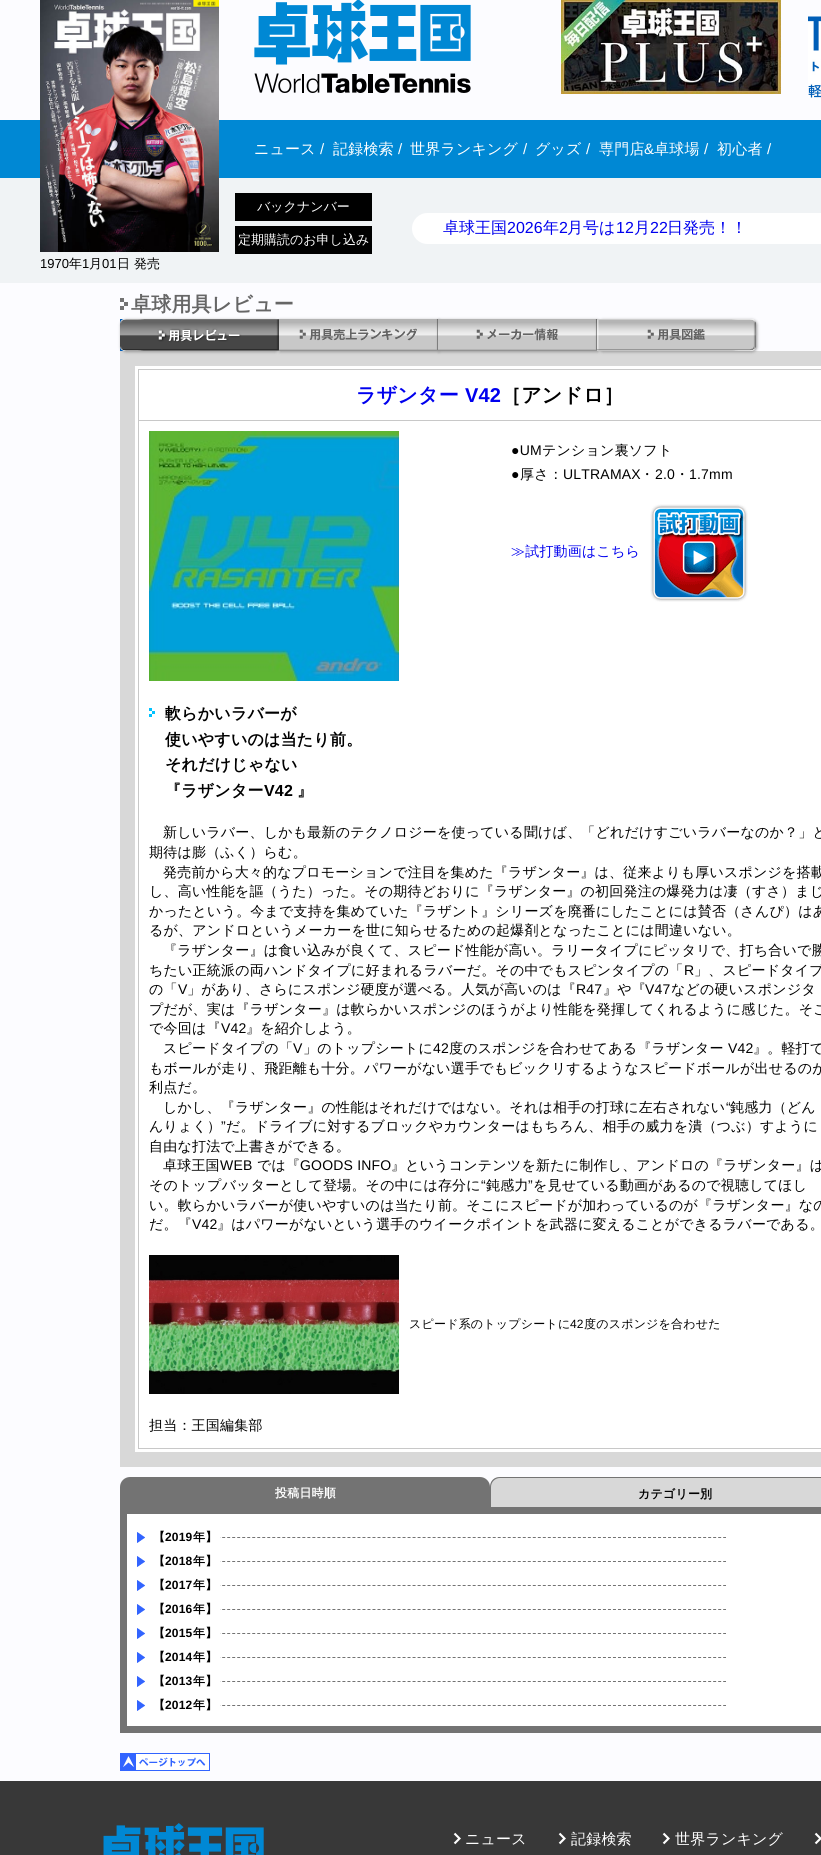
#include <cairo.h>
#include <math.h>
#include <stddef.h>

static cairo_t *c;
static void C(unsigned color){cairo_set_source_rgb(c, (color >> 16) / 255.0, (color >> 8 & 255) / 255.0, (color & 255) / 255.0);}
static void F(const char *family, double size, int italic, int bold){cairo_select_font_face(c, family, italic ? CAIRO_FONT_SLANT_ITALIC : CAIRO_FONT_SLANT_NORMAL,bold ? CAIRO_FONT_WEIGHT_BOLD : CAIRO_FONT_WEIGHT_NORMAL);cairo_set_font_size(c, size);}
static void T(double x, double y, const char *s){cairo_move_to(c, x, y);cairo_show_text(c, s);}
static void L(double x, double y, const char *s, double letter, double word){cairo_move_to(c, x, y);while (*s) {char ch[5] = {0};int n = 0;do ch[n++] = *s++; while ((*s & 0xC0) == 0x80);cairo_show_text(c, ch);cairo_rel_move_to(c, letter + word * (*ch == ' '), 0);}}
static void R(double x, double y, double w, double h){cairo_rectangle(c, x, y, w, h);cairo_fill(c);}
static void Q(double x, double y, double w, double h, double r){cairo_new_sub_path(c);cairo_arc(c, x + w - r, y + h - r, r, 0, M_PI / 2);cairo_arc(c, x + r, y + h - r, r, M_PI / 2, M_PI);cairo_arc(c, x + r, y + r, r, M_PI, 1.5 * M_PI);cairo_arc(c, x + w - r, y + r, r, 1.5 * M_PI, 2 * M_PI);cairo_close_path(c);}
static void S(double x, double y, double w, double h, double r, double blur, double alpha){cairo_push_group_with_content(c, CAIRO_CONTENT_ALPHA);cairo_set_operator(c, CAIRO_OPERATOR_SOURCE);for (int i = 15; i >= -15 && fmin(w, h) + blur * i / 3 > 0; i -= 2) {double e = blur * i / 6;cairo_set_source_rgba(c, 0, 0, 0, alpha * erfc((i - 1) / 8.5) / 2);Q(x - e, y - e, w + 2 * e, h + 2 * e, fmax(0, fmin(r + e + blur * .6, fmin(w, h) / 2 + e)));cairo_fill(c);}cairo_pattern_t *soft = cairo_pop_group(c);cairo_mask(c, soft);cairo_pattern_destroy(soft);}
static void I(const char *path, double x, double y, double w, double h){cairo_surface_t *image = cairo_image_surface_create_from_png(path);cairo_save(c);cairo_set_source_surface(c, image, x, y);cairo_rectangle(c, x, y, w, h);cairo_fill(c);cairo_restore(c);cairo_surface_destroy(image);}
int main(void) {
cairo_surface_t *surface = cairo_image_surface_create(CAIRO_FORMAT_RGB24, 821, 1855);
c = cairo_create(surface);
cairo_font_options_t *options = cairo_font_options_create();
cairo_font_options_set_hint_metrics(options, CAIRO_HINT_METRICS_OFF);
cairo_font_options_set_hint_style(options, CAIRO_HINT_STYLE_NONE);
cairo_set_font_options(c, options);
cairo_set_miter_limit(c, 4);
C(0xfcfcff);
cairo_paint(c);
I("1.png",254,0,217,93);
I("2.png",561,0,220,94);
I("3.png",808,16,13,82);
C(0x0088d4);
R(0,120,821,58);
F("WenQuanYi Zen Hei Medium",15,0,0);
C(0xffffff);
L(254,154,"ニュース",.2,0);
F("Liberation Sans",15,0,0);
L(320,154,"/",.2,0);
F("WenQuanYi Zen Hei Medium",15,0,0);
L(333,154,"記録検索",.2,0);
F("Liberation Sans",15,0,0);
L(398,154,"/",.2,0);
F("WenQuanYi Zen Hei Medium",15,0,0);
L(410,154,"世界ランキング",.2,0);
F("Liberation Sans",15,0,0);
L(523,154,"/",.2,0);
F("WenQuanYi Zen Hei Medium",15,0,0);
L(535,154,"グッズ",.2,0);
F("Liberation Sans",15,0,0);
L(586,154,"/",.2,0);
F("WenQuanYi Zen Hei Medium",15,0,0);
L(599,154,"専門店",.2,0);
F("Liberation Sans",15,0,0);
L(644,154,"&",.2,0);
F("WenQuanYi Zen Hei Medium",15,0,0);
L(654,154,"卓球場",.2,0);
F("Liberation Sans",15,0,0);
L(704,154,"/",.2,0);
F("WenQuanYi Zen Hei Medium",15,0,0);
L(717,154,"初心者",.2,0);
F("Liberation Sans",15,0,0);
L(767,154,"/",.2,0);
C(0xf0f3f5);
R(0,178,821,105);
C(0x000000);
R(235,193,137,28);
F("WenQuanYi Zen Hei Medium",13,0,0);
C(0xffffff);
T(257,211,"バックナンバー");
C(0x000000);
R(235,226,137,28);
C(0xffffff);
T(238,244,"定期購読のお申し込み");
Q(412,213,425,31,15.5);
cairo_fill(c);
F("WenQuanYi Zen Hei Medium",16,0,0);
C(0x0000ee);
T(443,233,"卓球王国");
F("Liberation Sans",16,0,0);
T(507,233,"2026");
F("WenQuanYi Zen Hei Medium",16,0,0);
T(543,233,"年");
F("Liberation Sans",16,0,0);
T(559,233,"2");
F("WenQuanYi Zen Hei Medium",16,0,0);
T(567,233,"月号は");
F("Liberation Sans",16,0,0);
T(616,233,"12");
F("WenQuanYi Zen Hei Medium",16,0,0);
T(634,233,"月");
F("Liberation Sans",16,0,0);
T(650,233,"22");
F("WenQuanYi Zen Hei Medium",16,0,0);
T(667,233,"日発売！！");
I("4.png",40,0,179,252);
F("Liberation Sans",13,0,0);
C(0x000000);
T(40,268,"1970");
F("WenQuanYi Zen Hei Medium",13,0,0);
T(69,268,"年");
F("Liberation Sans",13,0,0);
T(82,268,"1");
F("WenQuanYi Zen Hei Medium",13,0,0);
T(89,268,"月");
F("Liberation Sans",13,0,0);
T(102,268,"01");
F("WenQuanYi Zen Hei Medium",13,0,0);
T(117,268,"日 発売");
I("5.png",120,298,8,12);
F("WenQuanYi Zen Hei",20,0,1);
C(0x666666);
L(131,311,"卓球用具レビュー",.2,0);
C(0xffffff);
cairo_rectangle(c,127.5,358.5,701,1101);
cairo_fill_preserve(c);
C(0xd8d8d8);
cairo_set_line_width(c,15);
cairo_stroke(c);
C(0x999999);
S(121,320,159,32,5,1.5,1);
C(0x005ab4);
R(120,319,5,32);
I("6.png",120,319,5,32);
I("7.png",120,319,159,32);
C(0x999999);
S(280,320,159,32,0,1.5,1);
I("8.png",279,319,159,32);
S(439,320,159,32,0,1.5,1);
I("9.png",438,319,159,32);
S(598,320,159,32,5,1.5,1);
I("10.png",751,319,5,32);
I("11.png",597,319,159,32);
cairo_rectangle(c,138.5,369.5,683,1079);
C(0xc8c8c8);
cairo_set_line_width(c,1);
cairo_stroke(c);
R(139,420,682,1);
C(0x0000ee);
L(356,402,"ラザンター",.2,0);
F("Liberation Sans",20,0,1);
L(465,402,"V42",.2,0);
F("WenQuanYi Zen Hei",20,0,1);
C(0x000000);
L(501,402,"［アンドロ］",.2,0);
I("12.png",149,431,250,250);
F("Liberation Sans",14,0,0);
L(511,455,"●UM",.2,0);
F("WenQuanYi Zen Hei Medium",14,0,0);
L(542,455,"テンション裏ソフト",.2,0);
F("Liberation Sans",14,0,0);
L(511,479,"●",.2,0);
F("WenQuanYi Zen Hei Medium",14,0,0);
L(520,479,"厚さ：",.2,0);
F("Liberation Sans",14,0,0);
L(563,479,"ULTRAMAX",.2,0);
F("WenQuanYi Zen Hei Medium",14,0,0);
L(640,479,"・",.2,0);
F("Liberation Sans",14,0,0);
L(655,479,"2.0",.2,0);
F("WenQuanYi Zen Hei Medium",14,0,0);
L(675,479,"・",.2,0);
F("Liberation Sans",14,0,0);
L(689,479,"1.7mm",.2,0);
F("WenQuanYi Zen Hei Medium",14,0,0);
C(0x0000ee);
L(511,556,"≫試打動画はこちら",.2,0);
I("13.png",650,504,98,98);
I("14.png",149,708,6,9);
F("WenQuanYi Zen Hei",16,0,1);
C(0x000000);
L(165,719,"軟らかいラバーが",.2,0);
L(165,745,"使いやすいのは当たり前。",.2,0);
L(165,770,"それだけじゃない",.2,0);
L(165,796,"『ラザンター",.2,0);
F("Liberation Sans",16,0,1);
L(264,796,"V42",.2,0);
F("WenQuanYi Zen Hei",16,0,1);
L(297,796,"』",.2,0);
F("WenQuanYi Zen Hei Medium",14,0,0);
L(163,837,"新しいラバー、しかも最新のテクノロジーを使っている聞けば、「どれだけすごいラバーなのか？」と",.2,0);
L(149,857,"期待は膨（ふく）らむ。",.2,0);
L(163,877,"発売前から大々的なプロモーションで注目を集めた『ラザンター』は、従来よりも厚いスポンジを搭載",.2,0);
L(149,896,"し、高い性能を謳（うた）った。その期待どおりに『ラザンター』の初回発注の爆発力は凄（すさ）まじ",.2,0);
L(149,916,"かったという。今まで支持を集めていた『ラザント』シリーズを廃番にしたことには賛否（さんぴ）はあ",.2,0);
L(149,935,"るが、アンドロというメーカーを世に知らせるための起爆剤となったことには間違いない。",.2,0);
L(163,955,"『ラザンター』は食い込みが良くて、スピード性能が高い。ラリータイプにピッタリで、打ち合いで勝",.2,0);
L(149,975,"ちたい正統派の両ハンドタイプに好まれるラバーだ。その中でもスピンタイプの「",.2,0);
F("Liberation Sans",14,0,0);
L(684,975,"R",.2,0);
F("WenQuanYi Zen Hei Medium",14,0,0);
L(694,975,"」、スピードタイプ",.2,0);
L(149,994,"の「",.2,0);
F("Liberation Sans",14,0,0);
L(178,994,"V",.2,0);
F("WenQuanYi Zen Hei Medium",14,0,0);
L(187,994,"」があり、さらにスポンジ硬度が選べる。人気が高いのは『",.2,0);
F("Liberation Sans",14,0,0);
L(576,994,"R47",.2,0);
F("WenQuanYi Zen Hei Medium",14,0,0);
L(603,994,"』や『",.2,0);
F("Liberation Sans",14,0,0);
L(645,994,"V47",.2,0);
F("WenQuanYi Zen Hei Medium",14,0,0);
L(671,994,"などの硬いスポンジタ",.2,0);
L(149,1014,"プだが、実は『ラザンター』は軟らかいスポンジのほうがより性能を発揮してくれるように感じた。そこ",.2,0);
L(149,1033,"で今回は『",.2,0);
F("Liberation Sans",14,0,0);
L(221,1033,"V42",.2,0);
F("WenQuanYi Zen Hei Medium",14,0,0);
L(246,1033,"』を紹介しよう。",.2,0);
L(163,1053,"スピードタイプの「",.2,0);
F("Liberation Sans",14,0,0);
L(293,1053,"V",.2,0);
F("WenQuanYi Zen Hei Medium",14,0,0);
L(303,1053,"」のトップシートに",.2,0);
F("Liberation Sans",14,0,0);
L(433,1053,"42",.2,0);
F("WenQuanYi Zen Hei Medium",14,0,0);
L(449,1053,"度のスポンジを合わせてある『ラザンター",.2,0);
F("Liberation Sans",14,0,0);
L(728,1053,"V42",.2,0);
F("WenQuanYi Zen Hei Medium",14,0,0);
L(753,1053,"』。軽打で",.2,0);
L(149,1073,"もボールが走り、飛距離も十分。パワーがない選手でもビックリするようなスピードボールが出せるのが",.2,0);
L(149,1092,"利点だ。",.2,0);
L(163,1112,"しかし、『ラザンター』の性能はそれだけではない。それは相手の打球に左右されない",.2,0);
F("Liberation Sans",14,0,0);
L(726,1112,"“",.2,0);
F("WenQuanYi Zen Hei Medium",14,0,0);
L(730,1112,"鈍感力（どん",.2,0);
L(149,1131,"んりょく）",.2,0);
F("Liberation Sans",14,0,0);
L(221,1131,"”",.2,0);
F("WenQuanYi Zen Hei Medium",14,0,0);
L(226,1131,"だ。ドライブに対するブロックやカウンターはもちろん、相手の威力を潰（つぶ）すように",.2,0);
L(149,1151,"自由な打法で上書きができる。",.2,0);
L(163,1170,"卓球王国",.2,0);
F("Liberation Sans",14,0,0);
L(220,1170,"WEB",.2,0);
F("WenQuanYi Zen Hei Medium",14,0,0);
L(257,1170,"では『",.2,0);
F("Liberation Sans",14,0,0);
L(300,1170,"GOODS INFO",.2,0);
F("WenQuanYi Zen Hei Medium",14,0,0);
L(391,1170,"』というコンテンツを新たに制作し、アンドロの『ラザンター』は",.2,0);
L(149,1190,"そのトップバッターとして登場。その中には存分に",.2,0);
F("Liberation Sans",14,0,0);
L(481,1190,"“",.2,0);
F("WenQuanYi Zen Hei Medium",14,0,0);
L(486,1190,"鈍感力",.2,0);
F("Liberation Sans",14,0,0);
L(528,1190,"”",.2,0);
F("WenQuanYi Zen Hei Medium",14,0,0);
L(533,1190,"を見せている動画があるので視聴してほし",.2,0);
L(149,1210,"い。軟らかいラバーが使いやすいのは当たり前。そこにスピードが加わっているのが『ラザンター』なの",.2,0);
L(149,1229,"だ。『",.2,0);
F("Liberation Sans",14,0,0);
L(192,1229,"V42",.2,0);
F("WenQuanYi Zen Hei Medium",14,0,0);
L(217,1229,"』はパワーがないという選手のウイークポイントを武器に変えることができるラバーである。",.2,0);
I("15.png",149,1255,250,139);
F("WenQuanYi Zen Hei Medium",12,0,0);
L(409,1328,"スピード系のトップシートに",.2,0);
F("Liberation Sans",12,0,0);
L(570,1328,"42",.2,0);
F("WenQuanYi Zen Hei Medium",12,0,0);
L(584,1328,"度のスポンジを合わせた",.2,0);
F("WenQuanYi Zen Hei Medium",14,0,0);
L(149,1430,"担当：王国編集部",.2,0);
C(0x737373);
cairo_new_path(c);
cairo_move_to(c,130,1477);
cairo_line_to(c,480,1477);
cairo_curve_to(c,485.5,1477,490,1481.5,490,1487);
cairo_line_to(c,490,1507);
cairo_line_to(c,120,1507);
cairo_line_to(c,120,1487);
cairo_curve_to(c,120,1481.5,124.5,1477,130,1477);
cairo_close_path(c);
cairo_fill(c);
F("WenQuanYi Zen Hei",12,0,1);
C(0xffffff);
L(275,1497,"投稿日時順",.2,0);
C(0xd8d8d8);
cairo_new_path(c);
cairo_move_to(c,500,1477);
cairo_line_to(c,821,1477);
cairo_curve_to(c,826.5,1477,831,1481.5,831,1487);
cairo_line_to(c,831,1507);
cairo_line_to(c,490,1507);
cairo_line_to(c,490,1487);
cairo_curve_to(c,490,1481.5,494.5,1477,500,1477);
cairo_close_path(c);
cairo_fill(c);
C(0x737373);
cairo_set_fill_rule(c,CAIRO_FILL_RULE_EVEN_ODD);
cairo_new_path(c);
cairo_move_to(c,500,1477);
cairo_line_to(c,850,1477);
cairo_curve_to(c,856,1477,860,1481,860,1487);
cairo_line_to(c,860,1507);
cairo_line_to(c,490,1507);
cairo_line_to(c,490,1487);
cairo_curve_to(c,490,1481,494,1477,500,1477);
cairo_close_path(c);
cairo_move_to(c,500,1478);
cairo_line_to(c,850,1478);
cairo_curve_to(c,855,1478,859,1482,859,1487);
cairo_line_to(c,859,1507);
cairo_line_to(c,491,1507);
cairo_line_to(c,491,1487);
cairo_curve_to(c,491,1482,495,1478,500,1478);
cairo_close_path(c);
cairo_fill(c);
C(0x000000);
L(638,1498,"カテゴリー別",.2,0);
C(0xffffff);
cairo_rectangle(c,123.5,1510.5,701,219);
cairo_fill_preserve(c);
C(0x737373);
cairo_set_line_width(c,7);
cairo_stroke(c);
cairo_new_path(c);
cairo_move_to(c,137,1537.5);
cairo_line_to(c,726,1537.5);
cairo_set_line_width(c,1);
cairo_set_dash(c,(double[]){3,2.01},2,0);
cairo_stroke(c);
C(0xffffff);
R(137,1537,83,1);
I("16.png",137,1532,8,11);
C(0x000000);
L(153,1541,"【",.2,0);
F("Liberation Sans",12,0,1);
L(165,1541,"2019",.2,0);
F("WenQuanYi Zen Hei",12,0,1);
L(193,1541,"年】",.2,0);
cairo_new_path(c);
cairo_move_to(c,137,1561.5);
cairo_line_to(c,726,1561.5);
C(0x737373);
cairo_stroke(c);
C(0xffffff);
R(137,1561,83,1);
I("16.png",137,1556,8,11);
C(0x000000);
L(153,1565,"【",.2,0);
F("Liberation Sans",12,0,1);
L(165,1565,"2018",.2,0);
F("WenQuanYi Zen Hei",12,0,1);
L(193,1565,"年】",.2,0);
cairo_new_path(c);
cairo_move_to(c,137,1585.5);
cairo_line_to(c,726,1585.5);
C(0x737373);
cairo_stroke(c);
C(0xffffff);
R(137,1585,83,1);
I("16.png",137,1580,8,11);
C(0x000000);
L(153,1589,"【",.2,0);
F("Liberation Sans",12,0,1);
L(165,1589,"2017",.2,0);
F("WenQuanYi Zen Hei",12,0,1);
L(193,1589,"年】",.2,0);
cairo_new_path(c);
cairo_move_to(c,137,1609.5);
cairo_line_to(c,726,1609.5);
C(0x737373);
cairo_stroke(c);
C(0xffffff);
R(137,1609,83,1);
I("16.png",137,1604,8,11);
C(0x000000);
L(153,1613,"【",.2,0);
F("Liberation Sans",12,0,1);
L(165,1613,"2016",.2,0);
F("WenQuanYi Zen Hei",12,0,1);
L(193,1613,"年】",.2,0);
cairo_new_path(c);
cairo_move_to(c,137,1633.5);
cairo_line_to(c,726,1633.5);
C(0x737373);
cairo_stroke(c);
C(0xffffff);
R(137,1633,83,1);
I("16.png",137,1628,8,11);
C(0x000000);
L(153,1637,"【",.2,0);
F("Liberation Sans",12,0,1);
L(165,1637,"2015",.2,0);
F("WenQuanYi Zen Hei",12,0,1);
L(193,1637,"年】",.2,0);
cairo_new_path(c);
cairo_move_to(c,137,1657.5);
cairo_line_to(c,726,1657.5);
C(0x737373);
cairo_stroke(c);
C(0xffffff);
R(137,1657,83,1);
I("16.png",137,1652,8,11);
C(0x000000);
L(153,1661,"【",.2,0);
F("Liberation Sans",12,0,1);
L(165,1661,"2014",.2,0);
F("WenQuanYi Zen Hei",12,0,1);
L(193,1661,"年】",.2,0);
cairo_new_path(c);
cairo_move_to(c,137,1681.5);
cairo_line_to(c,726,1681.5);
C(0x737373);
cairo_stroke(c);
C(0xffffff);
R(137,1681,83,1);
I("16.png",137,1676,8,11);
C(0x000000);
L(153,1685,"【",.2,0);
F("Liberation Sans",12,0,1);
L(165,1685,"2013",.2,0);
F("WenQuanYi Zen Hei",12,0,1);
L(193,1685,"年】",.2,0);
cairo_new_path(c);
cairo_move_to(c,137,1705.5);
cairo_line_to(c,726,1705.5);
C(0x737373);
cairo_stroke(c);
C(0xffffff);
R(137,1705,83,1);
I("16.png",137,1700,8,11);
C(0x000000);
L(153,1709,"【",.2,0);
F("Liberation Sans",12,0,1);
L(165,1709,"2012",.2,0);
F("WenQuanYi Zen Hei",12,0,1);
L(193,1709,"年】",.2,0);
I("17.png",120,1753,90,18);
C(0x383838);
R(0,1781,821,74);
I("18.png",103,1823,161,32);
F("WenQuanYi Zen Hei Medium",15,0,0);
C(0xffffff);
L(465,1844,"ニュース",.2,0);
cairo_new_path(c);
cairo_move_to(c,454.5,1833.5);
cairo_line_to(c,459.5,1838.5);
cairo_line_to(c,454.5,1843.5);
cairo_set_line_width(c,2.1);
cairo_set_dash(c,NULL,0,0);
cairo_stroke(c);
L(571,1844,"記録検索",.2,0);
cairo_new_path(c);
cairo_move_to(c,559.5,1833.5);
cairo_line_to(c,564.5,1838.5);
cairo_line_to(c,559.5,1843.5);
cairo_stroke(c);
L(675,1844,"世界ランキング",.2,0);
cairo_new_path(c);
cairo_move_to(c,663.5,1833.5);
cairo_line_to(c,668.5,1838.5);
cairo_line_to(c,663.5,1843.5);
cairo_stroke(c);
cairo_new_path(c);
cairo_move_to(c,815.5,1833.5);
cairo_line_to(c,820.5,1838.5);
cairo_line_to(c,815.5,1843.5);
cairo_stroke(c);
cairo_surface_write_to_png(surface, "o.png");
cairo_font_options_destroy(options);
cairo_destroy(c);
cairo_surface_destroy(surface);
return 0;
}
